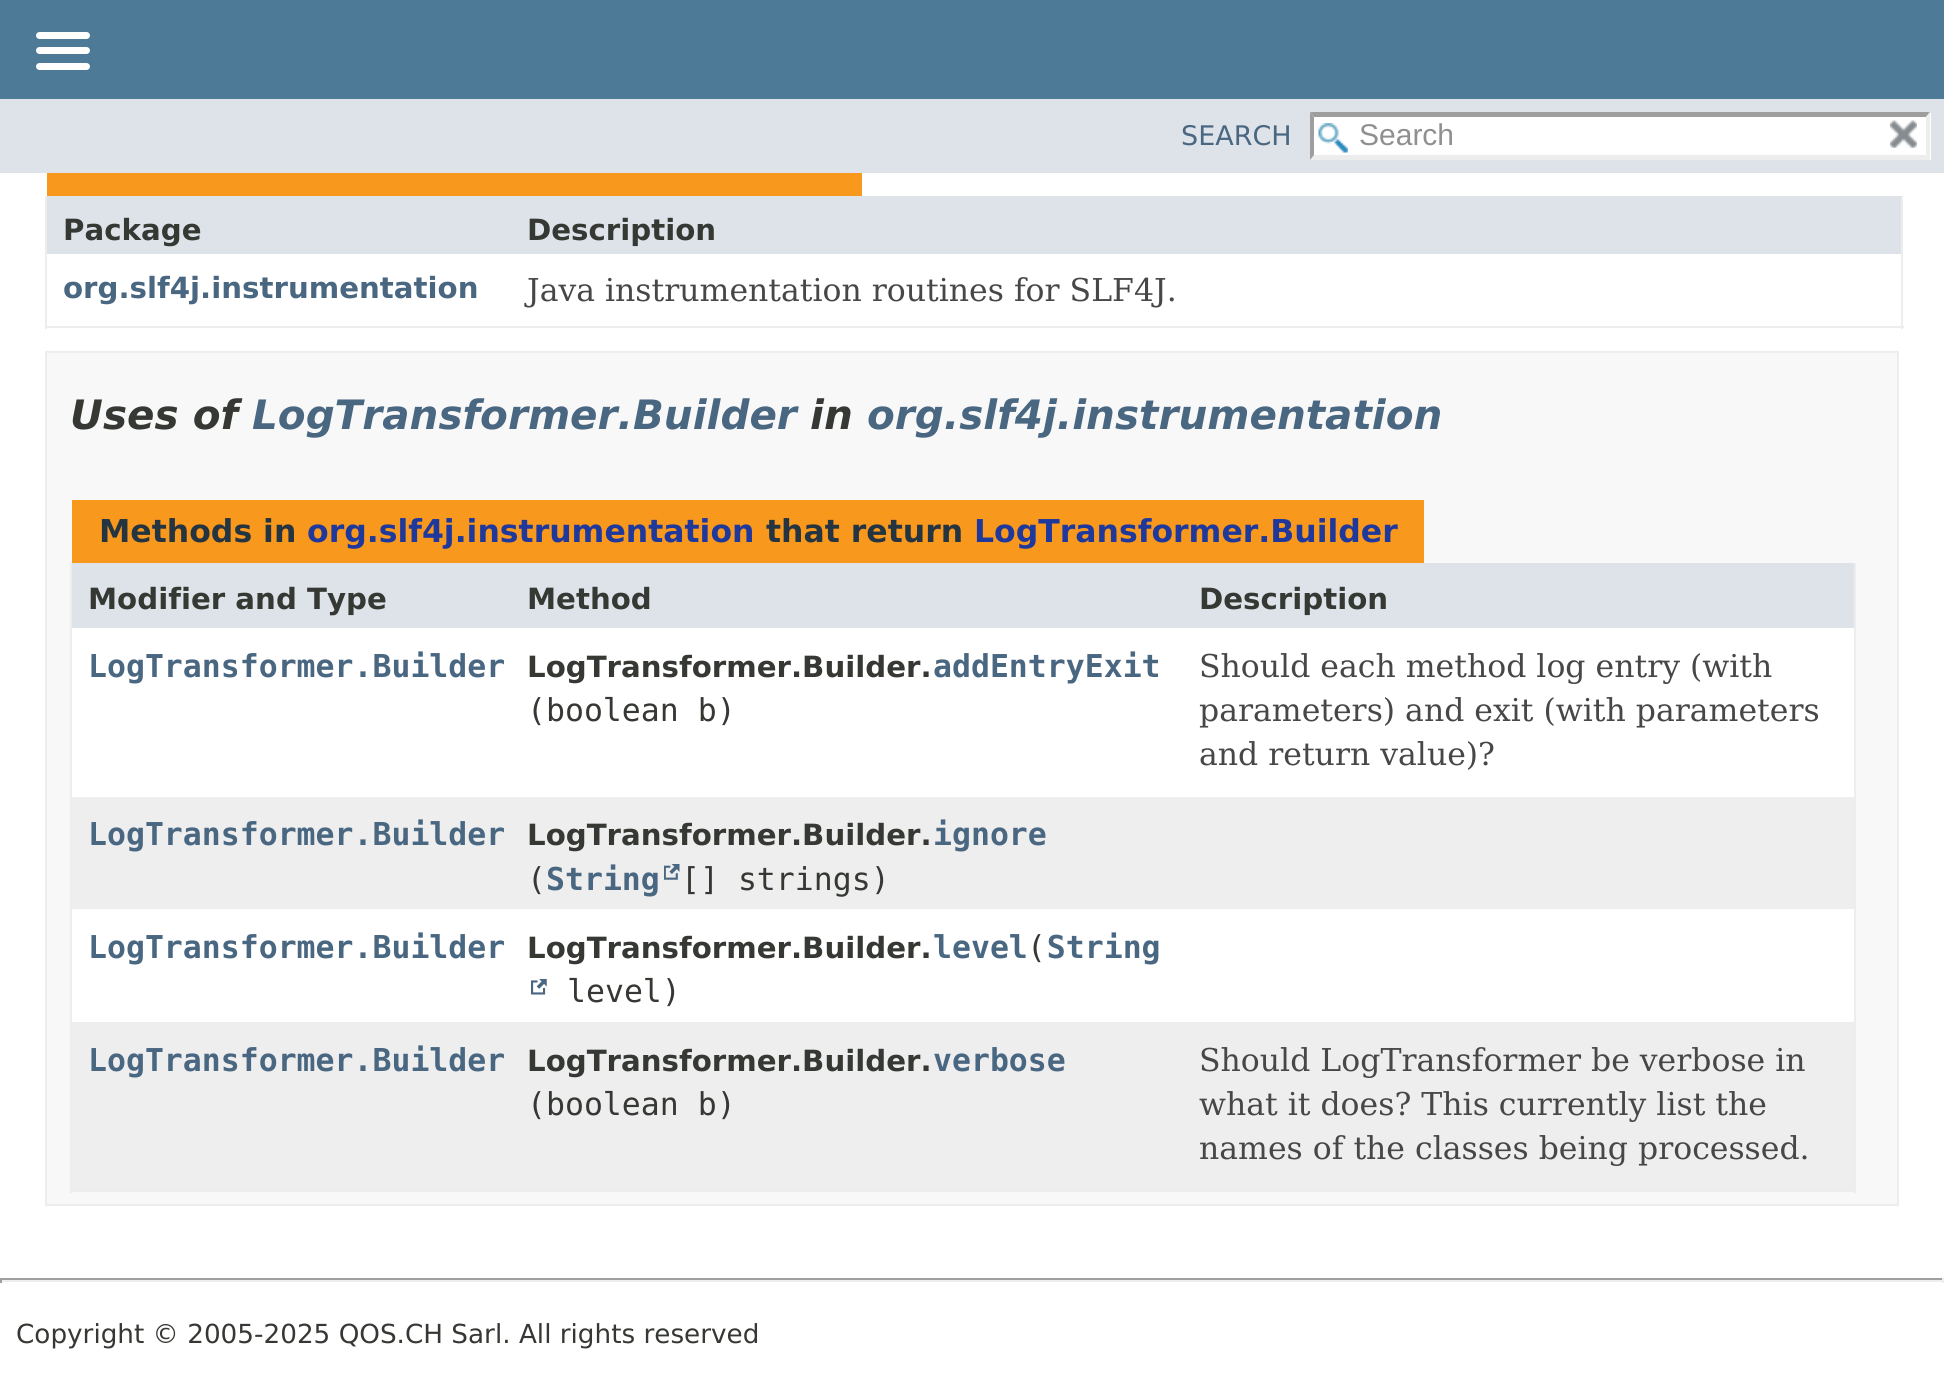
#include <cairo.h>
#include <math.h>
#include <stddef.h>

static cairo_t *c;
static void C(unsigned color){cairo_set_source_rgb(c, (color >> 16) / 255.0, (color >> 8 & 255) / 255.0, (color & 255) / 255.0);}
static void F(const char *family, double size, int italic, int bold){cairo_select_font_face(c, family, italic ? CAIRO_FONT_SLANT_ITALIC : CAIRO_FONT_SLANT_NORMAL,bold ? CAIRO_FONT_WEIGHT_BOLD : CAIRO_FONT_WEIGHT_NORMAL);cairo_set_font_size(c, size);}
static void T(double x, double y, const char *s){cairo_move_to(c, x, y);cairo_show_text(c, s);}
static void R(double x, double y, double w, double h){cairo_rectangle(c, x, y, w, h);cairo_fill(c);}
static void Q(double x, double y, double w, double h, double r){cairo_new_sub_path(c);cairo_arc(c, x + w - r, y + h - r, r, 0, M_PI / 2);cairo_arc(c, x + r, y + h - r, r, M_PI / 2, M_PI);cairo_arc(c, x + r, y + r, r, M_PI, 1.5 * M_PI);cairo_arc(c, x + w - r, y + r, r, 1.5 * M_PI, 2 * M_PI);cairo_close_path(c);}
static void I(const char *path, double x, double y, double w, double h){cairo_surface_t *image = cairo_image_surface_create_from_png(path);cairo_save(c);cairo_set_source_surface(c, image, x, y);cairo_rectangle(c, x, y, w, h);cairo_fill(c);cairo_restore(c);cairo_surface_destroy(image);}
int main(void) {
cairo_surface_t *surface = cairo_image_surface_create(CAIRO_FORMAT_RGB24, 1944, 1380);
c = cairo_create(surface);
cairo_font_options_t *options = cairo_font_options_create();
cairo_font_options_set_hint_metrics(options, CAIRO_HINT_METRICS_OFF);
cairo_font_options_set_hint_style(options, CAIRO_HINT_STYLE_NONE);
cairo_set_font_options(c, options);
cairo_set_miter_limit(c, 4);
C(0xffffff);
cairo_paint(c);
C(0x4d7a97);
R(0,0,1944,99);
C(0xffffff);
Q(36,32,54,7,3.5);
cairo_fill(c);
Q(36,47,54,7,3.5);
cairo_fill(c);
Q(36,63,54,7,3.5);
cairo_fill(c);
C(0xdee3e9);
R(0,99,1944,74);
F("DejaVu Sans",27,0,0);
C(0x4a6782);
T(1181,145,"SEARCH");
C(0xffffff);
R(1310,113,621,47);
I("1.png",1318,123,30,30);
C(0x9e9e9e);
cairo_new_path(c);
cairo_move_to(c,1310,112);
cairo_line_to(c,1930,112);
cairo_line_to(c,1926,117);
cairo_line_to(c,1314,117);
cairo_close_path(c);
cairo_fill(c);
C(0xededed);
cairo_new_path(c);
cairo_move_to(c,1930,112);
cairo_line_to(c,1930,160);
cairo_line_to(c,1926,155);
cairo_line_to(c,1926,117);
cairo_close_path(c);
cairo_fill(c);
cairo_new_path(c);
cairo_move_to(c,1930,160);
cairo_line_to(c,1310,160);
cairo_line_to(c,1314,155);
cairo_line_to(c,1926,155);
cairo_close_path(c);
cairo_fill(c);
C(0x9e9e9e);
cairo_new_path(c);
cairo_move_to(c,1310,160);
cairo_line_to(c,1310,112);
cairo_line_to(c,1314,117);
cairo_line_to(c,1314,155);
cairo_close_path(c);
cairo_fill(c);
F("Liberation Sans",30,0,0);
C(0x909090);
T(1359,145,"Search");
I("2.png",1890,120,27,28);
C(0xf8981d);
R(47,173,815,23);
C(0xededed);
R(1901,196,2,133);
R(45,326,1859,2);
R(45,196,2,133);
C(0xdee3e9);
R(47,196,1854,58);
F("DejaVu Sans",29.25,0,1);
C(0x353833);
T(63,240,"Package");
T(527,240,"Description");
C(0x4a6782);
T(63,298,"org.slf4j.instrumentation");
F("DejaVu Serif",31.5,0,0);
C(0x474747);
T(527,301,"Java instrumentation routines for SLF4J.");
C(0xf8f8f8);
cairo_rectangle(c,46,352,1852,853);
cairo_fill_preserve(c);
C(0xededed);
cairo_stroke(c);
F("DejaVu Sans",40.5,1,1);
C(0x353833);
T(70,429,"Uses of");
C(0x4a6782);
T(252,429,"LogTransformer.Builder");
C(0x353833);
T(810,429,"in");
C(0x4a6782);
T(867,429,"org.slf4j.instrumentation");
C(0xf8981d);
R(72,500,1352,63);
F("DejaVu Sans",31.5,0,1);
C(0x253441);
T(99,542,"Methods in");
C(0x1f389c);
T(307,542,"org.slf4j.instrumentation");
C(0x253441);
T(766,542,"that return");
C(0x1f389c);
T(974,542,"LogTransformer.Builder");
C(0xededed);
R(1854,563,2,630);
R(70,1190,1786,2);
R(70,563,2,630);
C(0xdee3e9);
R(72,563,1782,65);
F("DejaVu Sans",29.25,0,1);
C(0x353833);
T(88,609,"Modifier and Type");
T(527,609,"Method");
T(1199,609,"Description");
C(0xffffff);
R(72,628,1782,169);
F("DejaVu Sans Mono",31.5,0,1);
C(0x4a6782);
T(88,677,"LogTransformer.Builder");
F("DejaVu Sans",29.25,0,1);
C(0x353833);
T(527,677,"LogTransformer.Builder.");
F("DejaVu Sans Mono",31.5,0,1);
C(0x4a6782);
T(933,677,"addEntryExit");
F("DejaVu Sans Mono",31.5,0,0);
C(0x353833);
T(527,721,"(boolean b)");
F("DejaVu Serif",31.5,0,0);
C(0x474747);
T(1199,677,"Should each method log entry (with");
T(1199,721,"parameters) and exit (with parameters");
T(1199,765,"and return value)?");
C(0xeeeeef);
R(72,797,1782,112);
F("DejaVu Sans Mono",31.5,0,1);
C(0x4a6782);
T(88,845,"LogTransformer.Builder");
T(933,845,"ignore");
F("DejaVu Sans Mono",31.5,0,0);
C(0x353833);
T(527,890,"(");
F("DejaVu Sans Mono",31.5,0,1);
C(0x4a6782);
T(546,890,"String");
I("3.png",664,864,16,16);
F("DejaVu Sans Mono",31.5,0,0);
C(0x353833);
T(681,890,"[] strings)");
F("DejaVu Sans",29.25,0,1);
T(527,845,"LogTransformer.Builder.");
C(0xffffff);
R(72,909,1782,113);
F("DejaVu Sans Mono",31.5,0,1);
C(0x4a6782);
T(88,958,"LogTransformer.Builder");
T(933,958,"level String");
F("DejaVu Sans Mono",31.5,0,0);
C(0x353833);
T(1027,958,"(");
I("4.png",531,979,16,16);
T(567,1002,"level)");
F("DejaVu Sans",29.25,0,1);
T(527,958,"LogTransformer.Builder.");
C(0xeeeeef);
R(72,1022,1782,168);
F("DejaVu Sans Mono",31.5,0,1);
C(0x4a6782);
T(88,1071,"LogTransformer.Builder");
F("DejaVu Sans",29.25,0,1);
C(0x353833);
T(527,1071,"LogTransformer.Builder.");
F("DejaVu Sans Mono",31.5,0,1);
C(0x4a6782);
T(933,1071,"verbose");
F("DejaVu Sans Mono",31.5,0,0);
C(0x353833);
T(527,1115,"(boolean b)");
F("DejaVu Serif",31.5,0,0);
C(0x474747);
T(1199,1071,"Should LogTransformer be verbose in");
T(1199,1115,"what it does? This currently list the");
T(1199,1159,"names of the classes being processed.");
C(0x9f9f9f);
R(0,1278,1944,2);
C(0xeeeeee);
R(1942,1278,2,5);
R(0,1280,1944,2);
C(0x9f9f9f);
R(0,1278,2,5);
F("DejaVu Sans",26.25,0,0);
C(0x353833);
T(16,1343,"Copyright © 2005-2025 QOS.CH Sarl. All rights reserved");
cairo_surface_write_to_png(surface, "o.png");
cairo_font_options_destroy(options);
cairo_destroy(c);
cairo_surface_destroy(surface);
return 0;
}
